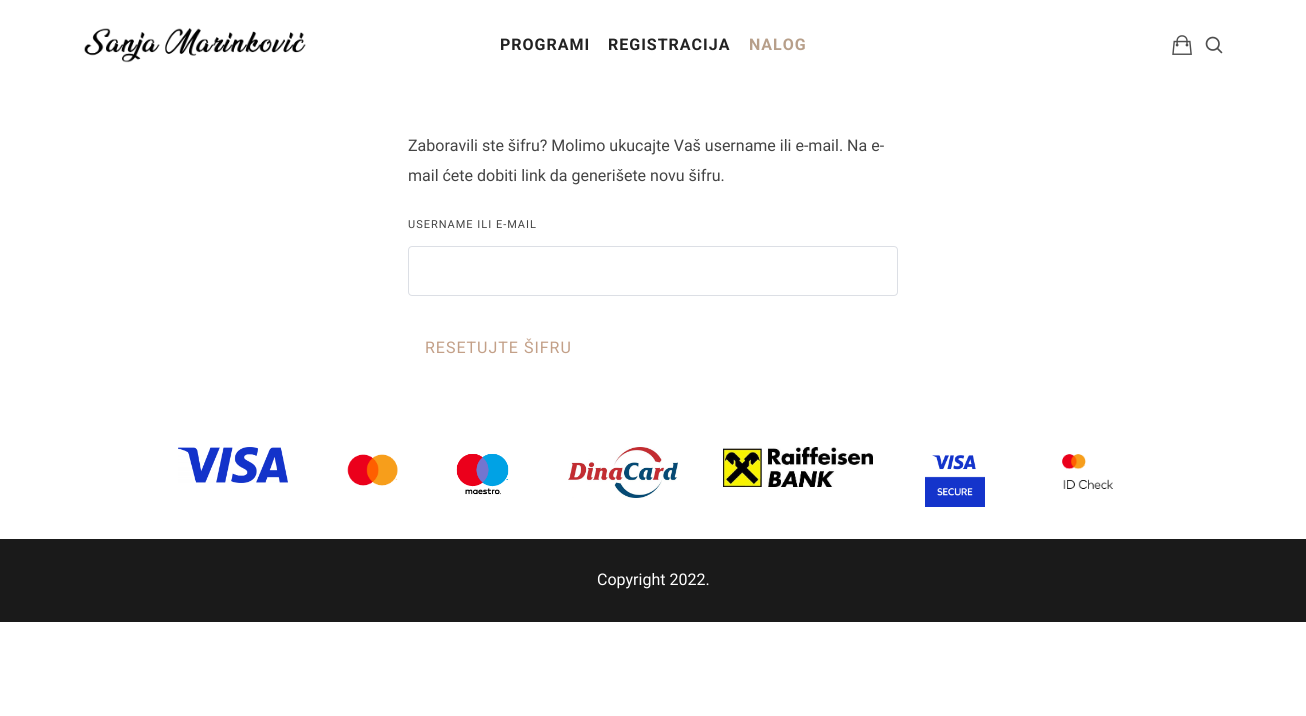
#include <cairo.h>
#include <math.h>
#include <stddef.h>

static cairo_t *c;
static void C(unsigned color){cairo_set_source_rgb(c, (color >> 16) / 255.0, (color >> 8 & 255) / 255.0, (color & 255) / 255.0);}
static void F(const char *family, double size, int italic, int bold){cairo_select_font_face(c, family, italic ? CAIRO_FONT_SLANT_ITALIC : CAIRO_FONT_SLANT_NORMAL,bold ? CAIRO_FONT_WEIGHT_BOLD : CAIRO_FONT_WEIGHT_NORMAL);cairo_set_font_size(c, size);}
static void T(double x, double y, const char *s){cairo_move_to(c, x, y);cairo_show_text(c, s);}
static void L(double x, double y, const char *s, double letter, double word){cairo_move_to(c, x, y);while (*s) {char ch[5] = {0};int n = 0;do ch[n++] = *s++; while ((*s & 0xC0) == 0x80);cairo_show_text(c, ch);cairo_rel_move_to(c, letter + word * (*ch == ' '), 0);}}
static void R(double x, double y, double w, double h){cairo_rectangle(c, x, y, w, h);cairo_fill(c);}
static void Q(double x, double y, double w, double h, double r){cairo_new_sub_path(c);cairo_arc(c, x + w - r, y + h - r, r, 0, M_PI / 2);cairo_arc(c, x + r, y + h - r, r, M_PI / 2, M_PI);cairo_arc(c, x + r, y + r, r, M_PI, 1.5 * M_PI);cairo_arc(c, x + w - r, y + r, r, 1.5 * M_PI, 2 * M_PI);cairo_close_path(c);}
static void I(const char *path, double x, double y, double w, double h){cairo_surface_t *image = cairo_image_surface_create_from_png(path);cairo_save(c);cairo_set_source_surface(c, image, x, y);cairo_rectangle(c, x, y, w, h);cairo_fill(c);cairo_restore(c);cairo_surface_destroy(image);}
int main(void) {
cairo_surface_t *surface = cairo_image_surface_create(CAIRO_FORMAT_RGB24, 1306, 716);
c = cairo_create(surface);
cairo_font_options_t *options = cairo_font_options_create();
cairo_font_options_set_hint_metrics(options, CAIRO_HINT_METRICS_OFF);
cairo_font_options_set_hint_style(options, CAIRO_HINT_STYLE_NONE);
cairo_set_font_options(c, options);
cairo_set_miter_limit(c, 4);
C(0xffffff);
cairo_paint(c);
I("1.png",84,28,222,35);
F("Roboto",16,0,1);
C(0x222222);
L(500,50,"PROGRAMI",1,0);
L(608,50,"REGISTRACIJA",1,0);
C(0xb79f8a);
L(749,50,"NALOG",1,0);
I("2.png",1172,35,20,20);
I("3.png",1205,36,18,18);
F("Roboto",16,0,0);
C(0x444444);
T(408,151,"Zaboravili ste šifru? Molimo ukucajte Vaš username ili e-mail. Na e-");
T(408,181,"mail ćete dobiti link da generišete novu šifru.");
F("Roboto",11,0,0);
L(408,228,"USERNAME ILI E-MAIL",1,0);
Q(408.5,246.5,489,49,3.5);
C(0xdcdfe5);
cairo_set_line_width(c,1);
cairo_stroke(c);
F("Roboto",16,0,0);
C(0xc3a088);
L(425,353,"RESETUJTE ŠIFRU",1,0);
I("4.png",178,447,110,36);
I("5.png",347,454,51,32);
I("6.png",456,454,53,41);
I("7.png",568,447,110,51);
I("8.png",723,447,150,40);
I("9.png",925,455,60,52);
I("10.png",1062,454,51,35);
C(0x1a1a1a);
R(0,539,1306,83);
C(0xffffff);
T(597,585,"Copyright 2022.");
cairo_surface_write_to_png(surface, "o.png");
cairo_font_options_destroy(options);
cairo_destroy(c);
cairo_surface_destroy(surface);
return 0;
}
